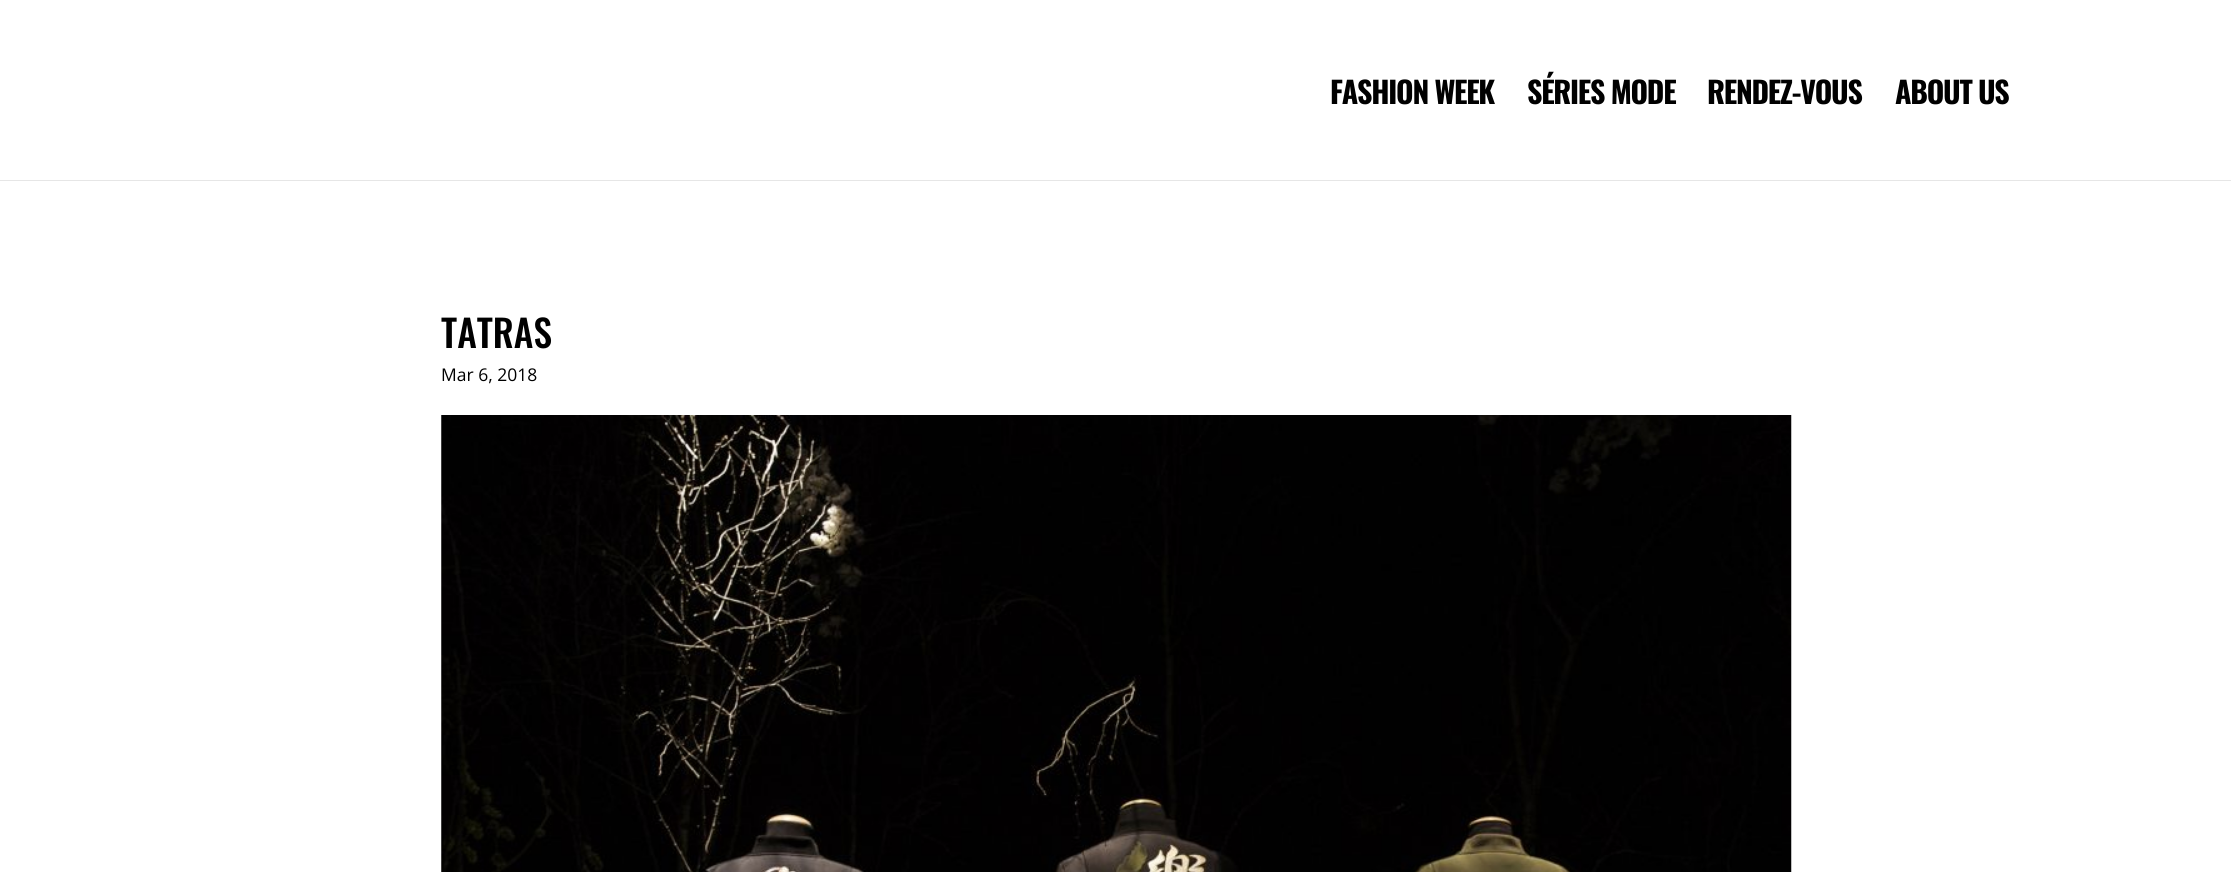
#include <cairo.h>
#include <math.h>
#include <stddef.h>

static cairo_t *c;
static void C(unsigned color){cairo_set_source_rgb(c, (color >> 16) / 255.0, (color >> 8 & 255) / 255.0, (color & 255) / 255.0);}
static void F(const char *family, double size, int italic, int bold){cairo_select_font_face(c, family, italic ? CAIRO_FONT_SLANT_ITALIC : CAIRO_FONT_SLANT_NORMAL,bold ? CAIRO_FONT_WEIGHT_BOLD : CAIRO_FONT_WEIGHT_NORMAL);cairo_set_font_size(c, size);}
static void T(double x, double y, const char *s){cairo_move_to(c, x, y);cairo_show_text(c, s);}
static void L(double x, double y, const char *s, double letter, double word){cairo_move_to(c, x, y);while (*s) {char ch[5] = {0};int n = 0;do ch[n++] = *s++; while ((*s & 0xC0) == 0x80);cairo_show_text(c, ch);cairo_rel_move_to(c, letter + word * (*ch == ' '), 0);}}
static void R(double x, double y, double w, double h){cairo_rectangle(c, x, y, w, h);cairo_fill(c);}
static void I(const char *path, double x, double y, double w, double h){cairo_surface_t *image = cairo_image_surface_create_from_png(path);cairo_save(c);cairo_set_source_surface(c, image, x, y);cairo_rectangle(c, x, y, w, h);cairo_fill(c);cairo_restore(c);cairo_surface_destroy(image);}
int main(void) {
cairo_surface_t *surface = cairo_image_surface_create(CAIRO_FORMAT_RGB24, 2231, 872);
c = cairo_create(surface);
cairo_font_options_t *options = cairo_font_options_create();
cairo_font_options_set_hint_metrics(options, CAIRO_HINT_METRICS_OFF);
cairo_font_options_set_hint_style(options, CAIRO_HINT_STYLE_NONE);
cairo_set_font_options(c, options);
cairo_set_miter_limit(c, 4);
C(0xffffff);
cairo_paint(c);
C(0xe6e6e6);
R(0,180,2231,1);
F("Oswald",30,0,1);
C(0x000000);
L(1330,104,"FASHION WEEK",-1.25,0);
L(1527,104,"SÉRIES MODE",-1.25,0);
L(1707,104,"RENDEZ-VOUS",-1.25,0);
L(1895,104,"ABOUT US",-1.25,0);
F("Oswald Medium",37.5,0,0);
T(441,348,"TATRAS");
F("Open Sans",17.5,0,0);
T(441,381,"Mar 6, 2018");
I("1.png",441,415,1351,457);
cairo_surface_write_to_png(surface, "o.png");
cairo_font_options_destroy(options);
cairo_destroy(c);
cairo_surface_destroy(surface);
return 0;
}
